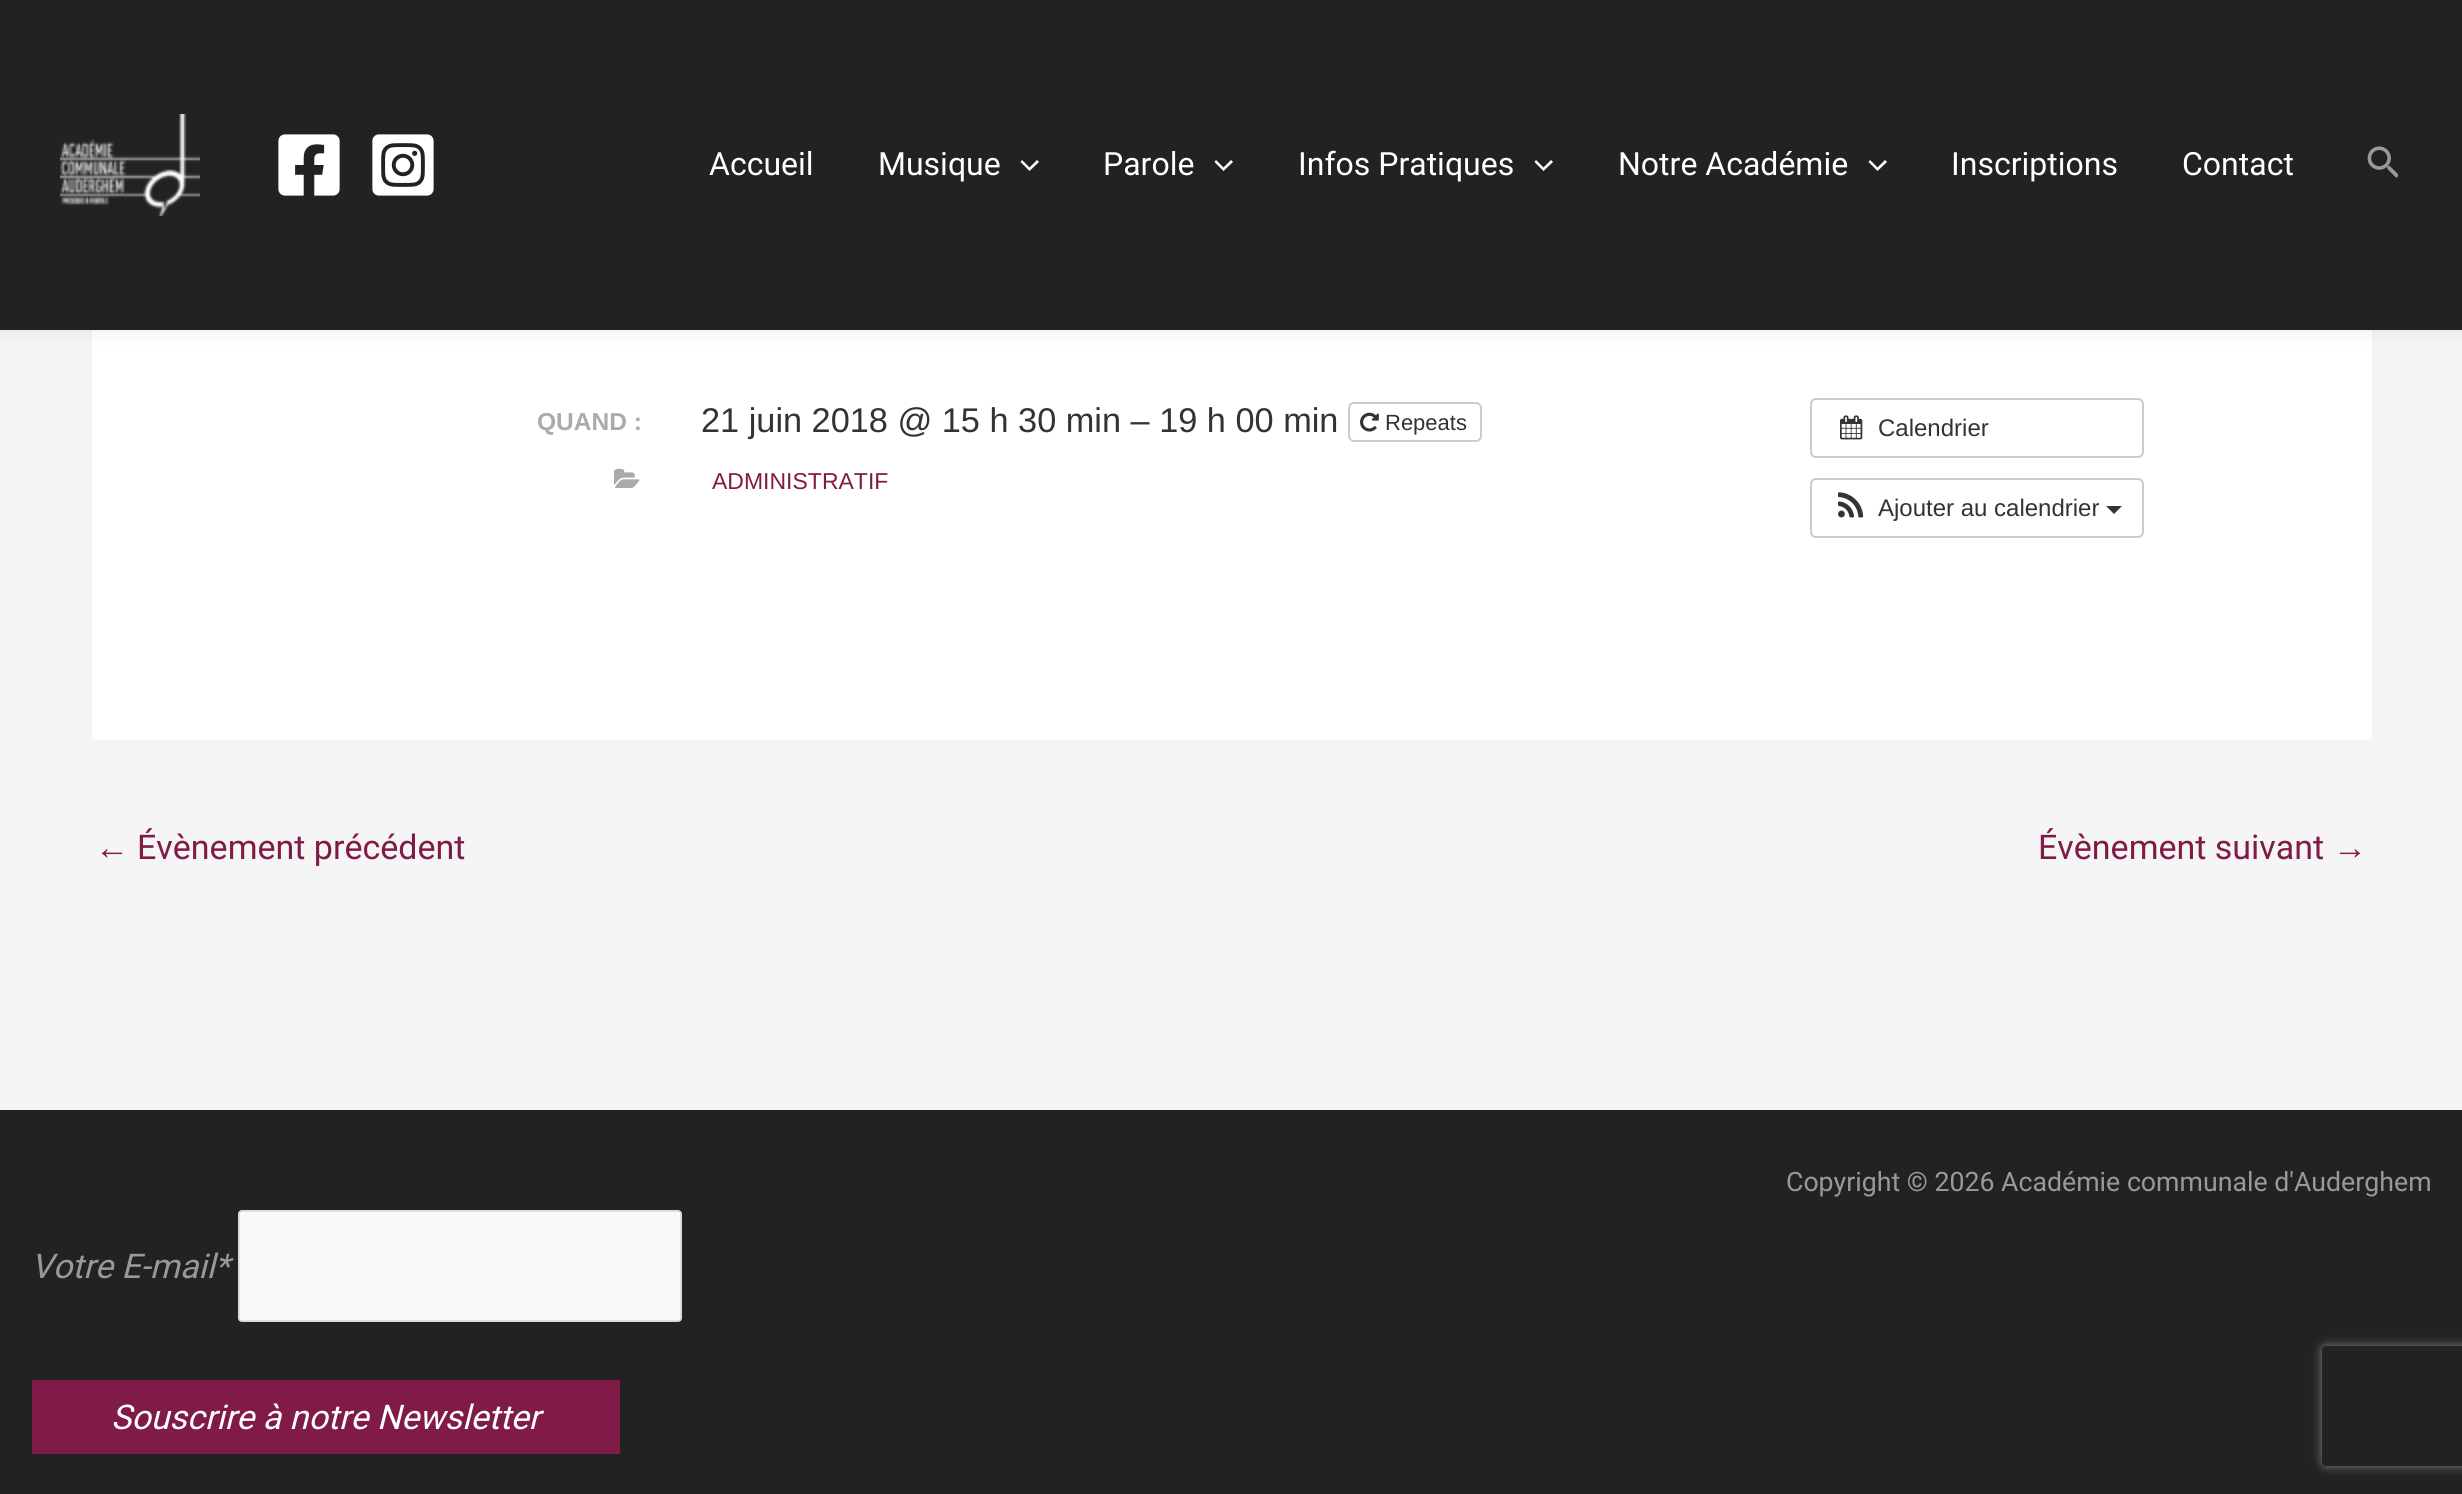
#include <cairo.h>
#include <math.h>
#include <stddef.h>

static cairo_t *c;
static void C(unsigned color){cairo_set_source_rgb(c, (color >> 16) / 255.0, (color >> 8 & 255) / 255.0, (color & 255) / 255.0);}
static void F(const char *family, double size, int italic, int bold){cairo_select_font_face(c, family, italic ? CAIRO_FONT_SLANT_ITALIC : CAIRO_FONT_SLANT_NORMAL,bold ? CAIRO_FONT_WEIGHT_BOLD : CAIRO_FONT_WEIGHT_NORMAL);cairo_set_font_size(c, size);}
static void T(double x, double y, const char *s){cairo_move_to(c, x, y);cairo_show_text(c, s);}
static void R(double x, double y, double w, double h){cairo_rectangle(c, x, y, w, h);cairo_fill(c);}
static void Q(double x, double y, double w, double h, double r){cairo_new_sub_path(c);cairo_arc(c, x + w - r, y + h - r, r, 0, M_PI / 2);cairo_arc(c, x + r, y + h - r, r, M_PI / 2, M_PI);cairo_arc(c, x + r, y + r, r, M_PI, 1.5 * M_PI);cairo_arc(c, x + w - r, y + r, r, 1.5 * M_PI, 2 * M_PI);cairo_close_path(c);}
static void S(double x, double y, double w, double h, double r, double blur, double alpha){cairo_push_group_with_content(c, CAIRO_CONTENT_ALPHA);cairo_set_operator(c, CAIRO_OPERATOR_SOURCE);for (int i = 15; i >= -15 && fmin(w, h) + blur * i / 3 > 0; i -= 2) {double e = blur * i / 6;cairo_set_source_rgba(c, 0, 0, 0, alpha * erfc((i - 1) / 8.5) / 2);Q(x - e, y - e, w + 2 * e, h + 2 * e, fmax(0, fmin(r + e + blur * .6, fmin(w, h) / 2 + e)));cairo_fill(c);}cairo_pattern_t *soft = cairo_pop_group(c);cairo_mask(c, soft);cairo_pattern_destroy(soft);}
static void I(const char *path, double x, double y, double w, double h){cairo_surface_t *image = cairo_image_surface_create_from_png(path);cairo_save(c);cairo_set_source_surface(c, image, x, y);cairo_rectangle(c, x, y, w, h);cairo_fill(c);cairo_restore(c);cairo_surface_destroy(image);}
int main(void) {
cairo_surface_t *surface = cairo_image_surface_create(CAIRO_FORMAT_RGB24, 2462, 1494);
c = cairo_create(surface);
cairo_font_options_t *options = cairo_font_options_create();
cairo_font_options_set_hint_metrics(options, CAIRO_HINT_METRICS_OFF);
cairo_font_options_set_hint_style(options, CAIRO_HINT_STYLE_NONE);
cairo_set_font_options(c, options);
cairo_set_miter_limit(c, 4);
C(0xf5f5f5);
cairo_paint(c);
C(0xffffff);
R(92,330,2280,410);
C(0x243242);
S(0,4,2462,330,0,10,.07);
C(0x222222);
R(0,0,2462,330);
I("1.png",60,114,140,102);
I("2.png",278,134,62,62);
I("3.png",372,134,62,62);
F("Roboto",32,0,0);
C(0xffffff);
T(709,175,"Accueil");
T(878,175,"Musique");
cairo_new_path(c);
cairo_move_to(c,1020.5,162);
cairo_line_to(c,1029.5,171);
cairo_line_to(c,1039,162);
cairo_line_to(c,1037,160);
cairo_line_to(c,1029.5,167.5);
cairo_line_to(c,1022,160);
cairo_close_path(c);
cairo_fill(c);
T(1103,175,"Parole");
cairo_new_path(c);
cairo_move_to(c,1214.5,162);
cairo_line_to(c,1223.5,171);
cairo_line_to(c,1233,162);
cairo_line_to(c,1231,160);
cairo_line_to(c,1223.5,167.5);
cairo_line_to(c,1216,160);
cairo_close_path(c);
cairo_fill(c);
T(1298,175,"Infos Pratiques");
cairo_new_path(c);
cairo_move_to(c,1534.5,162);
cairo_line_to(c,1543.5,171);
cairo_line_to(c,1553,162);
cairo_line_to(c,1551,160);
cairo_line_to(c,1543.5,167.5);
cairo_line_to(c,1536,160);
cairo_close_path(c);
cairo_fill(c);
T(1618,175,"Notre Académie");
cairo_new_path(c);
cairo_move_to(c,1868.5,162);
cairo_line_to(c,1877.5,171);
cairo_line_to(c,1887,162);
cairo_line_to(c,1885,160);
cairo_line_to(c,1877.5,167.5);
cairo_line_to(c,1870,160);
cairo_close_path(c);
cairo_fill(c);
T(1951,175,"Inscriptions");
T(2182,175,"Contact");
I("4.png",2367,146,31,32);
F("Liberation Sans",24.5,0,1);
C(0xaaaaaa);
T(537,430,"QUAND :");
F("Liberation Sans",34.3,0,0);
C(0x333333);
T(701,432,"21 juin 2018 @ 15 h 30 min – 19 h 00 min");
Q(1349,403,132,38,5);
C(0xcccccc);
cairo_stroke(c);
I("5.png",1360,412,19,20);
F("Liberation Sans",22,0,0);
C(0x333333);
T(1385,430,"Repeats");
I("6.png",614,468,26,20);
F("Liberation Sans",23,0,0);
C(0x801a47);
T(712,489,"ADMINISTRATIF");
Q(1811,399,332,58,5);
C(0xcccccc);
cairo_stroke(c);
I("7.png",1840,415,23,25);
F("Liberation Sans",24,0,0);
C(0x333333);
T(1878,436,"Calendrier");
Q(1811,479,332,58,5);
C(0xcccccc);
cairo_stroke(c);
I("8.png",1838,492,26,26);
C(0x333333);
T(1878,516,"Ajouter au calendrier");
cairo_new_path(c);
cairo_move_to(c,2106,506);
cairo_line_to(c,2122,506);
cairo_line_to(c,2114,514);
cairo_close_path(c);
cairo_fill(c);
F("Liberation Sans",34,0,0);
C(0x801a47);
T(95,859,"←");
F("Roboto",34,0,0);
T(137,859,"Évènement précédent");
T(2038,859,"Évènement suivant");
F("Liberation Sans",34,0,0);
T(2333,859,"→");
C(0x222222);
R(0,1110,2462,384);
F("Roboto",26.7,0,0);
C(0x999999);
T(1786,1191,"Copyright © 2026 Académie communale d'Auderghem");
F("Roboto",34,1,0);
T(31,1278,"Votre E-mail*");
C(0xfafafa);
Q(239,1211,442,110,3);
cairo_fill_preserve(c);
C(0xdddddd);
cairo_stroke(c);
C(0x801a47);
R(32,1380,588,74);
C(0xffffff);
T(111,1429,"Souscrire à notre Newsletter");
cairo_save(c);
cairo_set_fill_rule(c,CAIRO_FILL_RULE_EVEN_ODD);
cairo_new_path(c);
cairo_move_to(c,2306,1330);
cairo_line_to(c,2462,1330);
cairo_line_to(c,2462,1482);
cairo_line_to(c,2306,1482);
cairo_close_path(c);
cairo_move_to(c,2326,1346);
cairo_line_to(c,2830,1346);
cairo_curve_to(c,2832,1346,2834,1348,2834,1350);
cairo_line_to(c,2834,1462);
cairo_curve_to(c,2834,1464,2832,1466,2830,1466);
cairo_line_to(c,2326,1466);
cairo_curve_to(c,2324,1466,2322,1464,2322,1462);
cairo_line_to(c,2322,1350);
cairo_curve_to(c,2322,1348,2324,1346,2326,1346);
cairo_close_path(c);
cairo_clip(c);
C(0x808080);
S(2322,1346,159,120,4,5,1);
cairo_restore(c);
cairo_surface_write_to_png(surface, "o.png");
cairo_font_options_destroy(options);
cairo_destroy(c);
cairo_surface_destroy(surface);
return 0;
}
